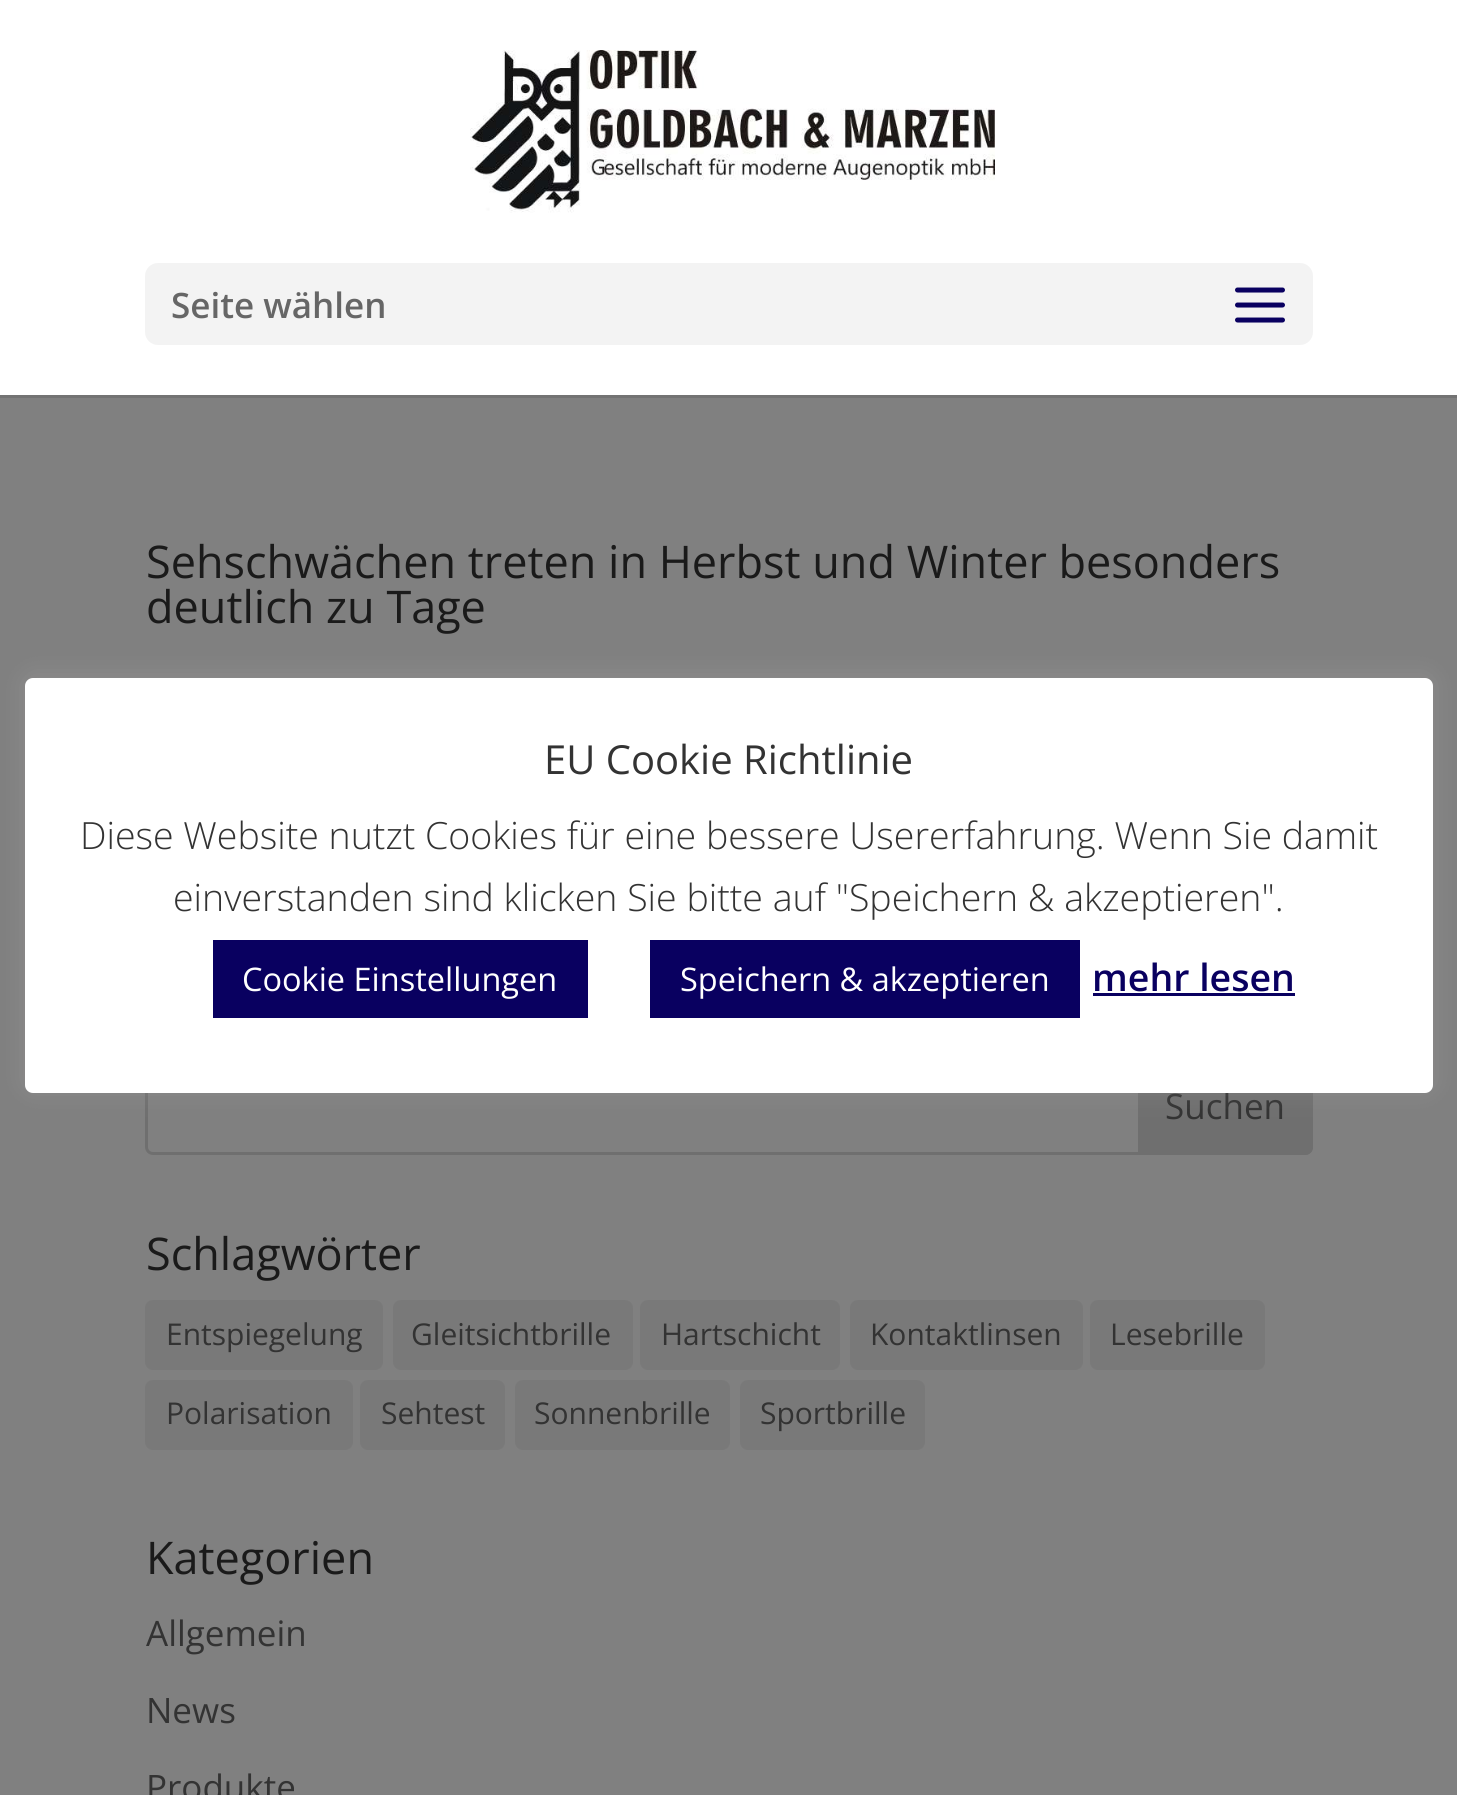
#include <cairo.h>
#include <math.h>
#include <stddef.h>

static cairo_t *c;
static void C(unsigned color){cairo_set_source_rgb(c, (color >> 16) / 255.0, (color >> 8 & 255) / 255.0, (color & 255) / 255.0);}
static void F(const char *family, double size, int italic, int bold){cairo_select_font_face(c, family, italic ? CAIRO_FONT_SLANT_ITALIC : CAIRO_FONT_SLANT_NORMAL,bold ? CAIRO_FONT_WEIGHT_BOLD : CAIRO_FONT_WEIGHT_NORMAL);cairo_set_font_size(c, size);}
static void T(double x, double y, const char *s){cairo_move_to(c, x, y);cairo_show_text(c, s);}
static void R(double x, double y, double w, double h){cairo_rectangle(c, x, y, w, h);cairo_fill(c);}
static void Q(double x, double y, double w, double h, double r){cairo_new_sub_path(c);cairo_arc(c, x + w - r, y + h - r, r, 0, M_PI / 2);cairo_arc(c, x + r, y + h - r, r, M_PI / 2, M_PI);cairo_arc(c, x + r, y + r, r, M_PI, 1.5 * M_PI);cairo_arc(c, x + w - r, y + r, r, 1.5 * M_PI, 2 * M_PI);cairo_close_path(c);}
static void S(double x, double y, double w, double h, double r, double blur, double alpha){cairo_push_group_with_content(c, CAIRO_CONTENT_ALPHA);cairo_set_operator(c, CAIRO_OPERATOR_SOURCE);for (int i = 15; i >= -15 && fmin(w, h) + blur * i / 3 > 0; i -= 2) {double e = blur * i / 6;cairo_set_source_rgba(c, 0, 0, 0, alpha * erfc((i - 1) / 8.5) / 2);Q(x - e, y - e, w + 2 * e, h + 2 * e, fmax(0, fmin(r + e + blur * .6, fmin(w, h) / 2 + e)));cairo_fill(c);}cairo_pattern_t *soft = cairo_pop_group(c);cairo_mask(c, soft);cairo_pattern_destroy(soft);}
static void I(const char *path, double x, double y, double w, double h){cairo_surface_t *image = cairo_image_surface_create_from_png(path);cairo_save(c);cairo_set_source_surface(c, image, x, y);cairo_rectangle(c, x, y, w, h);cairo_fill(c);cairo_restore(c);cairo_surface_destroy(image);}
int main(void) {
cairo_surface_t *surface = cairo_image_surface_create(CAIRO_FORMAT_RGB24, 1457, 1795);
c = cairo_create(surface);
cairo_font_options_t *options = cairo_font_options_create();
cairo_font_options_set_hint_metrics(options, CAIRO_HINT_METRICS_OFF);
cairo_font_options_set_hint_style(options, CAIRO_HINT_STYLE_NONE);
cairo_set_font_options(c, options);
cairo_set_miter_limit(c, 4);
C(0x808080);
cairo_paint(c);
C(0x737373);
cairo_new_path(c);
cairo_move_to(c,0,395);
cairo_line_to(c,0,398);
cairo_line_to(c,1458,398);
cairo_line_to(c,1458,3);
cairo_line_to(c,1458,395);
cairo_close_path(c);
cairo_fill(c);
C(0xffffff);
R(0,0,1457,395);
I("1.png",470,50,525,163);
C(0xf3f3f3);
Q(145,263,1168,82,13);
cairo_fill(c);
F("Open Sans SemiBold",35,0,0);
C(0x666666);
T(171,318,"Seite wählen");
I("2.png",1235,287,50,36);
F("Open Sans",45,0,0);
C(0x1a1a1a);
T(146,578,"Sehschwächen treten in Herbst und Winter besonders");
T(146,623,"deutlich zu Tage");
Q(146.5,1056.5,1165,97,6.5);
C(0x6f6f6f);
cairo_set_line_width(c,3);
cairo_stroke(c);
cairo_new_path(c);
cairo_move_to(c,1138,1055);
cairo_line_to(c,1305,1055);
cairo_curve_to(c,1309.5,1055,1313,1058.5,1313,1063);
cairo_line_to(c,1313,1147);
cairo_curve_to(c,1313,1151.5,1309.5,1155,1305,1155);
cairo_line_to(c,1138,1155);
cairo_close_path(c);
cairo_fill(c);
F("Open Sans",35,0,0);
C(0x333333);
T(1165,1119,"Suchen");
F("Open Sans",45,0,0);
C(0x1a1a1a);
T(146,1270,"Schlagwörter");
C(0x797979);
Q(145,1300,238,70,8);
cairo_fill(c);
F("Open Sans",30,0,0);
C(0x333333);
T(166,1345,"Entspiegelung");
C(0x797979);
Q(393,1300,240,70,8);
cairo_fill(c);
C(0x333333);
T(411,1345,"Gleitsichtbrille");
C(0x797979);
Q(640,1300,200,70,8);
cairo_fill(c);
C(0x333333);
T(661,1345,"Hartschicht");
C(0x797979);
Q(850,1300,233,70,8);
cairo_fill(c);
C(0x333333);
T(870,1345,"Kontaktlinsen");
C(0x797979);
Q(1090,1300,175,70,8);
cairo_fill(c);
C(0x333333);
T(1110,1345,"Lesebrille");
C(0x797979);
Q(145,1380,208,70,8);
cairo_fill(c);
C(0x333333);
T(166,1424,"Polarisation");
C(0x797979);
Q(360,1380,145,70,8);
cairo_fill(c);
C(0x333333);
T(381,1424,"Sehtest");
C(0x797979);
Q(515,1380,215,70,8);
cairo_fill(c);
C(0x333333);
T(534,1424,"Sonnenbrille");
C(0x797979);
Q(740,1380,185,70,8);
cairo_fill(c);
C(0x333333);
T(760,1424,"Sportbrille");
F("Open Sans",45,0,0);
C(0x1a1a1a);
T(146,1574,"Kategorien");
F("Open Sans",35,0,0);
C(0x333333);
T(146,1646,"Allgemein");
T(146,1723,"News");
T(146,1800,"Produkte");
C(0xacabab);
S(25,675,1408,415,8,12.5,.3);
C(0xffffff);
Q(25,678,1408,415,8);
cairo_fill(c);
F("Open Sans",40,0,0);
C(0x333333);
T(544,774,"EU Cookie Richtlinie");
F("Open Sans Light",37.5,0,0);
T(80,849,"Diese Website nutzt Cookies für eine bessere Usererfahrung. Wenn Sie damit");
T(173,911,"einverstanden sind klicken Sie bitte auf \"Speichern & akzeptieren\".");
C(0x090060);
R(213,940,375,78);
F("Open Sans",32.5,0,0);
C(0xffffff);
T(242,991,"Cookie Einstellungen");
C(0x090060);
R(650,940,430,78);
C(0xffffff);
T(680,991,"Speichern & akzeptieren");
F("Open Sans SemiBold",37.5,0,0);
C(0x090060);
T(1092,991,"mehr lesen");
R(1093,993,202,3);
cairo_surface_write_to_png(surface, "o.png");
cairo_font_options_destroy(options);
cairo_destroy(c);
cairo_surface_destroy(surface);
return 0;
}
